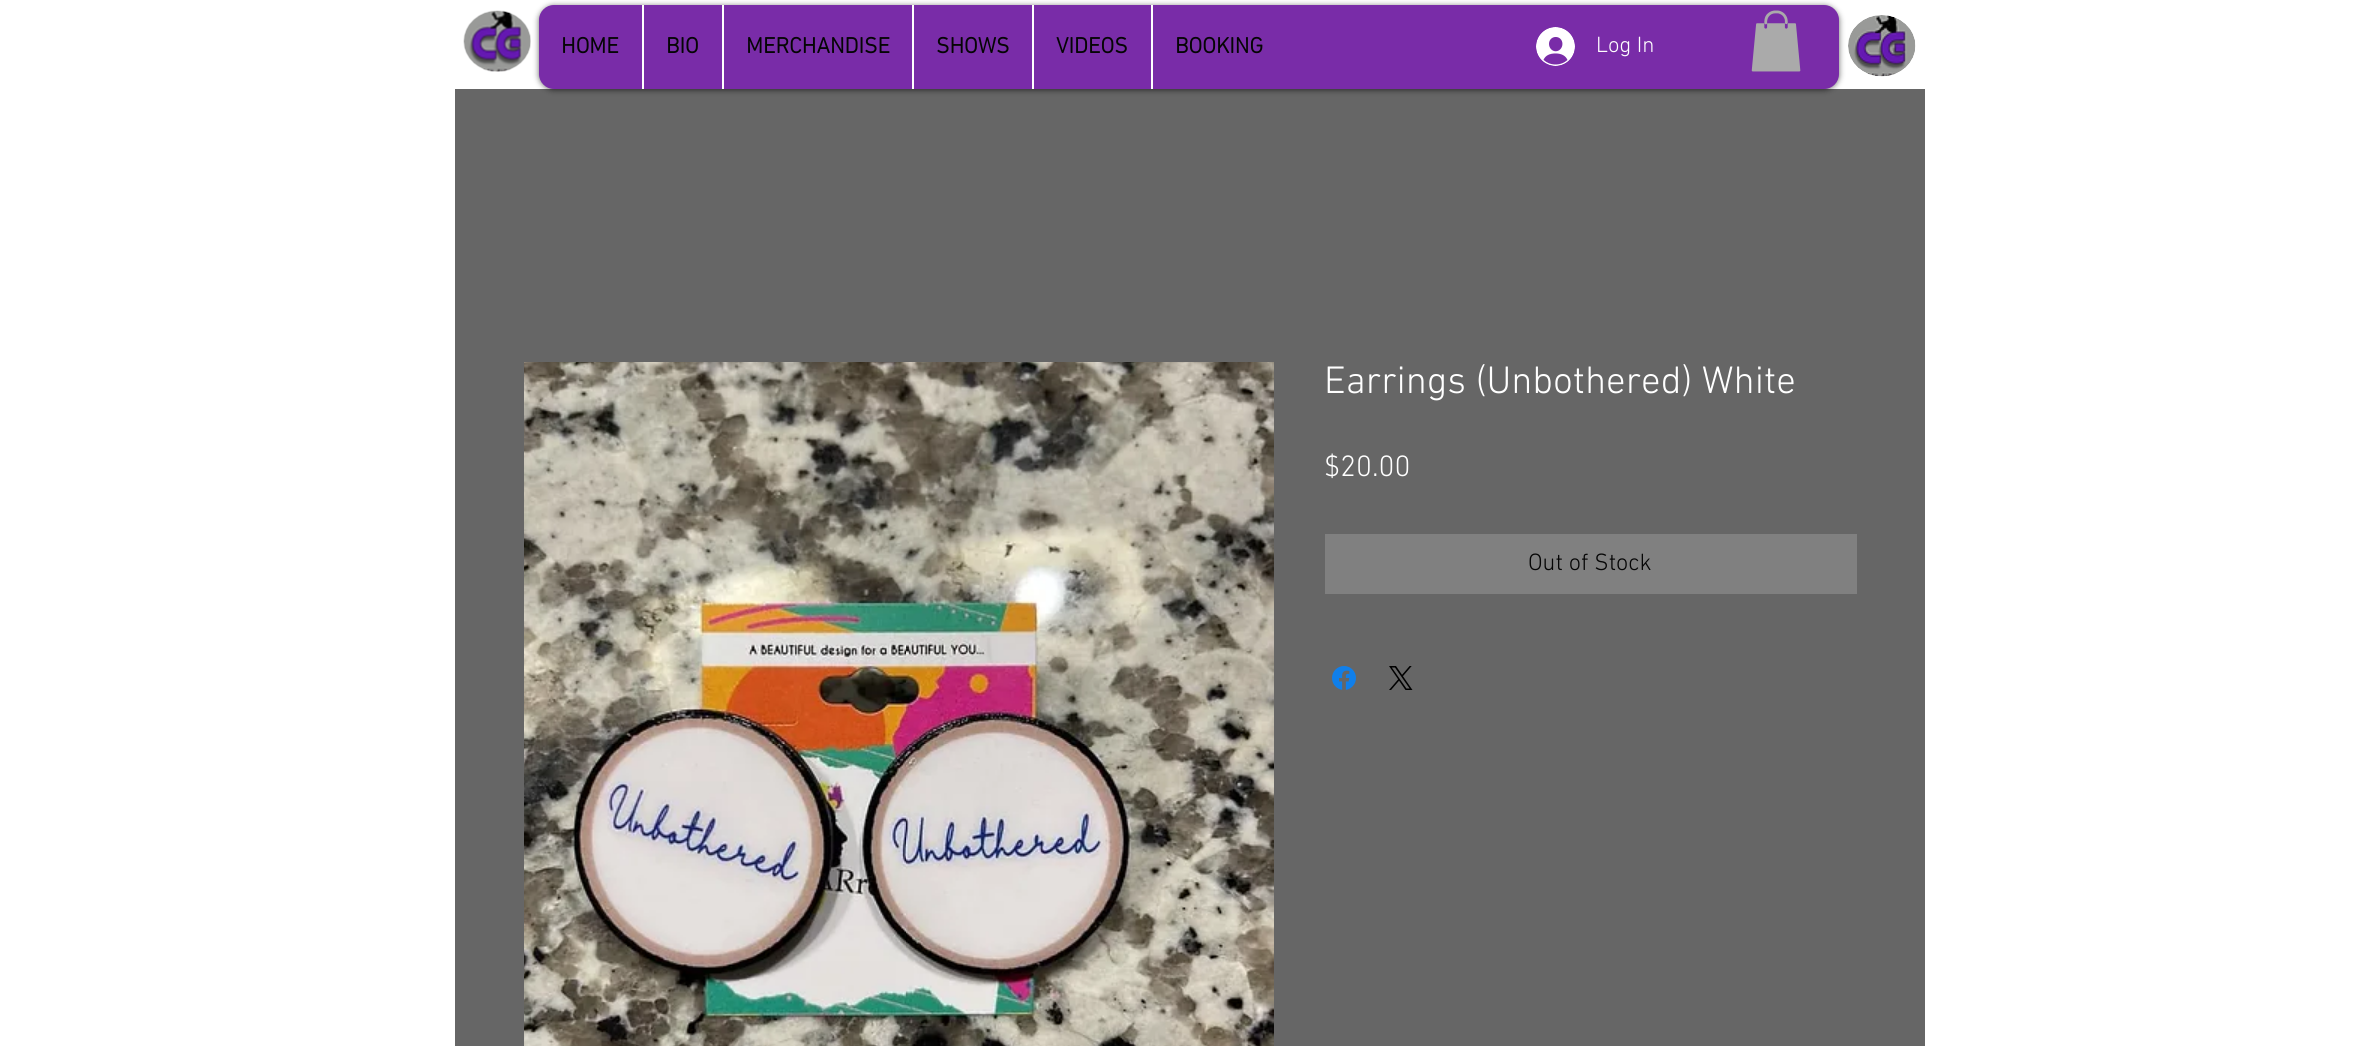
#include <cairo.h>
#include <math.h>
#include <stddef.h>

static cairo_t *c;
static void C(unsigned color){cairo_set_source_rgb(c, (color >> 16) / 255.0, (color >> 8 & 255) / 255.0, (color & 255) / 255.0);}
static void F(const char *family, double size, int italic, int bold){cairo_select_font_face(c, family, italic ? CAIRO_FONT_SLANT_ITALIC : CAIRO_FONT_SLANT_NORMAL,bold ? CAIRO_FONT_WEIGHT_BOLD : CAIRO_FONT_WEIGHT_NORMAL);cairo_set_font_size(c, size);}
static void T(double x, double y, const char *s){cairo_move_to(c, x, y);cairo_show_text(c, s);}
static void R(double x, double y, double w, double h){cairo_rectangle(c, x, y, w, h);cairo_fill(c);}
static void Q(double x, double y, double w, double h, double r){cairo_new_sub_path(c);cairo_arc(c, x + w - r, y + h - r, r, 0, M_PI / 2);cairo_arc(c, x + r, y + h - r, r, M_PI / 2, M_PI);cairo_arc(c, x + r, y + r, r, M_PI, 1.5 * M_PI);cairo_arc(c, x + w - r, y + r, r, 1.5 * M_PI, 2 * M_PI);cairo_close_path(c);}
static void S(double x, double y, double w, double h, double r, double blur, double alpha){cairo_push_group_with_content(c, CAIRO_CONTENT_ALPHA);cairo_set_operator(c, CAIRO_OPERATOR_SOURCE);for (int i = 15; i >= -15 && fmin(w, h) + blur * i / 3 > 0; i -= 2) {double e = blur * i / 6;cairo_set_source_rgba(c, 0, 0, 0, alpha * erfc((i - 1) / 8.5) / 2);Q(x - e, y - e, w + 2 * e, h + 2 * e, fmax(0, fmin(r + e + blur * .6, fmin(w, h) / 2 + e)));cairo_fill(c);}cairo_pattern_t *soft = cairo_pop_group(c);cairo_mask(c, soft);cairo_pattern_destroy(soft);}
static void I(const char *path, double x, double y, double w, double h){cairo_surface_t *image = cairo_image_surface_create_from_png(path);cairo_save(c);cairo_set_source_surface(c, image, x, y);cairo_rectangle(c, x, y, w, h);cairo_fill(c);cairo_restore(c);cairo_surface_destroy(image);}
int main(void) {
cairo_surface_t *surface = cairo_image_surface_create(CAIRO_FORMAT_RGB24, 2378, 1046);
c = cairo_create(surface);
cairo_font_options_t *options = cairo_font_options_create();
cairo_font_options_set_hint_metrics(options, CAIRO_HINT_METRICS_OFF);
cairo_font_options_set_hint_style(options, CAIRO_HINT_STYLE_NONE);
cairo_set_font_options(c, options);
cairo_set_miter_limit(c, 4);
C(0xffffff);
cairo_paint(c);
I("1.png",463,10,68,62);
C(0x666666);
R(455,89,1470,957);
C(0x000000);
S(539,6,1300,84,15,3,.6);
C(0x792ca8);
Q(539,5,1300,84,15);
cairo_fill(c);
F("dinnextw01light",22.5,0,1);
C(0x050505);
T(561,53,"HOME");
C(0xffffff);
R(642,5,2,84);
C(0x050505);
T(666,53,"BIO");
C(0xffffff);
R(722,5,2,84);
C(0x050505);
T(746,53,"MERCHANDISE");
C(0xffffff);
R(912,5,2,84);
C(0x050505);
T(936,53,"SHOWS");
C(0xffffff);
R(1032,5,2,84);
C(0x050505);
T(1056,53,"VIDEOS");
C(0xffffff);
R(1151,5,2,84);
C(0x050505);
T(1175,53,"BOOKING");
I("2.png",1536,27,39,39);
F("dinnextw01light Light",22.5,0,0);
C(0xffffff);
T(1596,52,"Log In");
I("3.png",1751,10,50,62);
I("4.png",1848,15,68,62);
I("5.png",524,362,750,684);
F("dinnextw01light Light",39,0,0);
T(1324,393,"Earrings (Unbothered) White");
F("dinnextw01light Light",30,0,0);
T(1324,476,"$20.00");
C(0x808080);
R(1325,534,532,60);
F("dinnextw01light Light",24,0,0);
C(0x050505);
T(1528,570,"Out of Stock");
I("6.png",1332,666,24,24);
I("7.png",1389,666,24,24);
cairo_surface_write_to_png(surface, "o.png");
cairo_font_options_destroy(options);
cairo_destroy(c);
cairo_surface_destroy(surface);
return 0;
}
